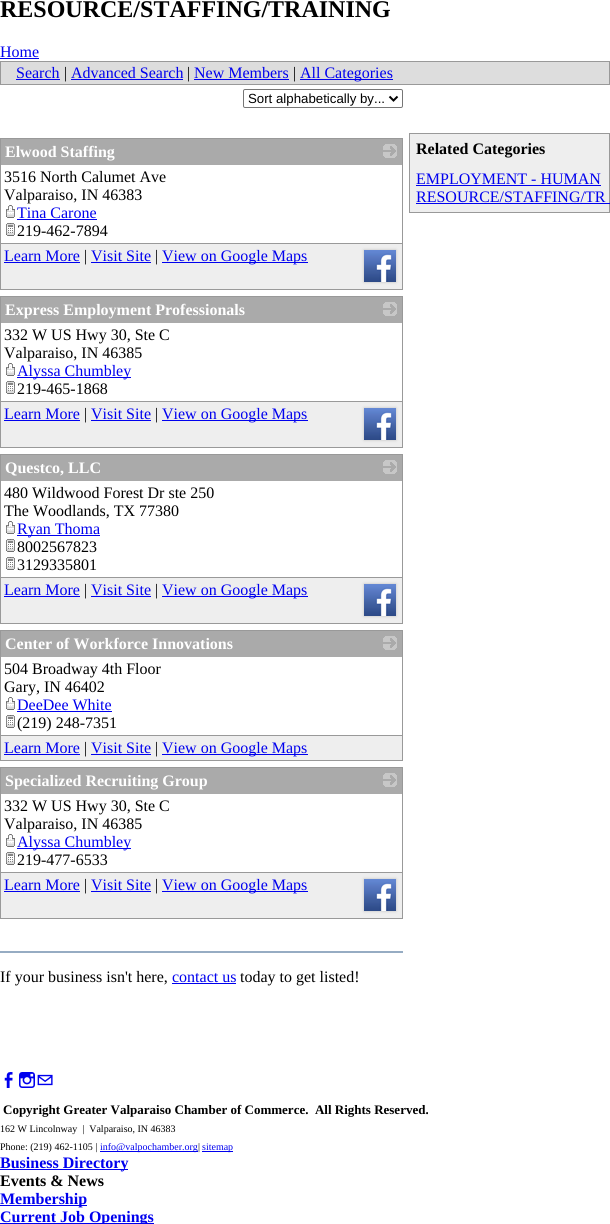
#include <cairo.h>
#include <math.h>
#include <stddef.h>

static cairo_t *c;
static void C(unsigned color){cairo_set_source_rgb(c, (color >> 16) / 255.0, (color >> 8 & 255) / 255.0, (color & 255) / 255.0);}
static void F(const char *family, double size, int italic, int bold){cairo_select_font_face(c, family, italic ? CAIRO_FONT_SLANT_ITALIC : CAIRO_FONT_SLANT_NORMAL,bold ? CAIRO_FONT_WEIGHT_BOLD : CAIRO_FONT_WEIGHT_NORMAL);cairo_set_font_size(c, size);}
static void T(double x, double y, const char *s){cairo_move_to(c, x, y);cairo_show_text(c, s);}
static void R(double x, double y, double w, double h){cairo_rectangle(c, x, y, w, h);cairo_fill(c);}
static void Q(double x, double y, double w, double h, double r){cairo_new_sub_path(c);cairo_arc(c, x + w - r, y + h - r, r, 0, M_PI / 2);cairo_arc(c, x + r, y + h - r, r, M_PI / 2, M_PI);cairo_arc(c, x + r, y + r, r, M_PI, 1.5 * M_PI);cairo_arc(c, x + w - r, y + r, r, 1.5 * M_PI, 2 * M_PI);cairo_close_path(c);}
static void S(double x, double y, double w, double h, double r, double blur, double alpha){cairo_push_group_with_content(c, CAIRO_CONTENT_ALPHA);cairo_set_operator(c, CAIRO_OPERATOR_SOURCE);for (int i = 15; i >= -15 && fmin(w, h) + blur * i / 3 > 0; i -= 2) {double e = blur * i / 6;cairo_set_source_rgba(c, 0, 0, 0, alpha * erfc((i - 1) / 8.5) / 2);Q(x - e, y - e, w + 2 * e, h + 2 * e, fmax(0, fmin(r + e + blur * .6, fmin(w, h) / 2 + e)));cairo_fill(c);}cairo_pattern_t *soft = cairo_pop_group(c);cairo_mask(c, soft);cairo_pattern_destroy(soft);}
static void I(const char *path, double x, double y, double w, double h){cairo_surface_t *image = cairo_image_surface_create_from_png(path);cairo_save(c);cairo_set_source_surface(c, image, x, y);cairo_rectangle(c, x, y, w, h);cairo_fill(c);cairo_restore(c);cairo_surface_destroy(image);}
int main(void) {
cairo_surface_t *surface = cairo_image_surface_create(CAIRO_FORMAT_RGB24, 610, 1224);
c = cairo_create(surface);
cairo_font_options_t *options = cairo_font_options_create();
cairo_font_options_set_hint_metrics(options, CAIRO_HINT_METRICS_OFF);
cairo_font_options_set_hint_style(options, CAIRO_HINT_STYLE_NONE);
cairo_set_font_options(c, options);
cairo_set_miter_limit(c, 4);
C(0xffffff);
cairo_paint(c);
F("Liberation Serif",24,0,1);
C(0x000000);
T(0,17,"RESOURCE/STAFFING/TRAINING");
F("Liberation Serif",16,0,0);
C(0x0000ee);
T(0,57,"Home");
R(0,58,39,1);
C(0xdddddd);
cairo_rectangle(c,.5,61.5,609,23);
cairo_fill_preserve(c);
C(0x999999);
cairo_set_line_width(c,1);
cairo_stroke(c);
C(0x0000ee);
T(16,78,"Search");
R(16,79,44,1);
C(0x000000);
T(64,78,"|");
C(0x0000ee);
T(71,78,"Advanced Search");
R(71,79,112,1);
C(0x000000);
T(187,78,"|");
C(0x0000ee);
T(194,78,"New Members");
R(194,79,95,1);
C(0x000000);
T(293,78,"|");
C(0x0000ee);
R(300,79,93,1);
T(300,78,"All Categories");
Q(243.5,89.5,159,18,1.5);
C(0x767676);
cairo_stroke(c);
cairo_new_path(c);
cairo_move_to(c,389.5,96.5);
cairo_line_to(c,393.5,100.5);
cairo_line_to(c,397.5,96.5);
C(0x000000);
cairo_set_line_width(c,2);
cairo_stroke(c);
F("Liberation Sans",13.25,0,0);
T(248,103,"Sort alphabetically by...");
cairo_rectangle(c,.5,138.5,402,151);
C(0x999999);
cairo_set_line_width(c,1);
cairo_stroke(c);
C(0xaaaaaa);
R(1,139,401,26);
F("Liberation Serif",16,0,1);
C(0xffffff);
T(5,157,"Elwood Staffing");
I("1.png",383,144,14,14);
F("Liberation Serif",16,0,0);
C(0x000000);
T(4,182,"3516 North Calumet Ave");
T(4,200,"Valparaiso, IN 46383");
I("2.png",6,205,9,13);
C(0x0000ee);
T(17,218,"Tina Carone");
R(17,219,80,1);
I("3.png",6,223,9,13);
C(0x000000);
T(17,236,"219-462-7894");
C(0xeeeeee);
R(1,244,401,45);
C(0x999999);
R(1,243,401,1);
C(0x0000ee);
T(4,261,"Learn More");
R(4,262,76,1);
C(0x000000);
T(84,261,"|");
C(0x0000ee);
T(91,261,"Visit Site");
R(91,262,60,1);
C(0x000000);
T(155,261,"|");
C(0x0000ee);
R(162,262,146,1);
T(162,261,"View on Google Maps");
C(0x000000);
S(364,250,32,32,0,1.5,.2);
I("4.png",364,250,32,32);
cairo_rectangle(c,.5,296.5,402,151);
C(0x999999);
cairo_stroke(c);
C(0xaaaaaa);
R(1,297,401,26);
F("Liberation Serif",16,0,1);
C(0xffffff);
T(5,315,"Express Employment Professionals");
I("1.png",383,302,14,14);
F("Liberation Serif",16,0,0);
C(0x000000);
T(4,340,"332 W US Hwy 30, Ste C");
T(4,358,"Valparaiso, IN 46385");
I("2.png",6,363,9,13);
C(0x0000ee);
R(17,377,114,1);
T(17,376,"Alyssa Chumbley");
I("3.png",6,381,9,13);
C(0x000000);
T(17,394,"219-465-1868");
C(0xeeeeee);
R(1,402,401,45);
C(0x999999);
R(1,401,401,1);
C(0x0000ee);
T(4,419,"Learn More");
R(4,420,76,1);
C(0x000000);
T(84,419,"|");
C(0x0000ee);
T(91,419,"Visit Site");
R(91,420,60,1);
C(0x000000);
T(155,419,"|");
C(0x0000ee);
R(162,420,146,1);
T(162,419,"View on Google Maps");
C(0x000000);
S(364,408,32,32,0,1.5,.2);
I("4.png",364,408,32,32);
cairo_rectangle(c,.5,454.5,402,169);
C(0x999999);
cairo_stroke(c);
C(0xaaaaaa);
R(1,455,401,26);
F("Liberation Serif",16,0,1);
C(0xffffff);
T(5,473,"Questco, LLC");
I("1.png",383,460,14,14);
F("Liberation Serif",16,0,0);
C(0x000000);
T(4,498,"480 Wildwood Forest Dr ste 250");
T(4,516,"The Woodlands, TX 77380");
I("2.png",6,521,9,13);
C(0x0000ee);
R(17,535,83,1);
T(17,534,"Ryan Thoma");
I("3.png",6,539,9,13);
C(0x000000);
T(17,552,"8002567823");
I("3.png",6,557,9,13);
T(17,570,"3129335801");
C(0xeeeeee);
R(1,578,401,45);
C(0x999999);
R(1,577,401,1);
C(0x0000ee);
T(4,595,"Learn More");
R(4,596,76,1);
C(0x000000);
T(84,595,"|");
C(0x0000ee);
T(91,595,"Visit Site");
R(91,596,60,1);
C(0x000000);
T(155,595,"|");
C(0x0000ee);
R(162,596,146,1);
T(162,595,"View on Google Maps");
C(0x000000);
S(364,584,32,32,0,1.5,.2);
I("4.png",364,584,32,32);
cairo_rectangle(c,.5,630.5,402,130);
C(0x999999);
cairo_stroke(c);
C(0xaaaaaa);
R(1,631,401,26);
F("Liberation Serif",16,0,1);
C(0xffffff);
T(5,649,"Center of Workforce Innovations");
I("1.png",383,636,14,14);
F("Liberation Serif",16,0,0);
C(0x000000);
T(4,674,"504 Broadway 4th Floor");
T(4,692,"Gary, IN 46402");
I("2.png",6,697,9,13);
C(0x0000ee);
T(17,710,"DeeDee White");
R(17,711,95,1);
I("3.png",6,715,9,13);
C(0x000000);
T(17,728,"(219) 248-7351");
C(0xeeeeee);
R(1,736,401,24);
C(0x999999);
R(1,735,401,1);
C(0x0000ee);
T(4,753,"Learn More");
R(4,754,76,1);
C(0x000000);
T(84,753,"|");
C(0x0000ee);
T(91,753,"Visit Site");
R(91,754,60,1);
C(0x000000);
T(155,753,"|");
C(0x0000ee);
R(162,754,146,1);
T(162,753,"View on Google Maps");
cairo_rectangle(c,.5,767.5,402,151);
C(0x999999);
cairo_stroke(c);
C(0xaaaaaa);
R(1,768,401,26);
F("Liberation Serif",16,0,1);
C(0xffffff);
T(5,786,"Specialized Recruiting Group");
I("1.png",383,773,14,14);
F("Liberation Serif",16,0,0);
C(0x000000);
T(4,811,"332 W US Hwy 30, Ste C");
T(4,829,"Valparaiso, IN 46385");
I("2.png",6,834,9,13);
C(0x0000ee);
R(17,848,114,1);
T(17,847,"Alyssa Chumbley");
I("3.png",6,852,9,13);
C(0x000000);
T(17,865,"219-477-6533");
C(0xeeeeee);
R(1,873,401,45);
C(0x999999);
R(1,872,401,1);
C(0x0000ee);
T(4,890,"Learn More");
R(4,891,76,1);
C(0x000000);
T(84,890,"|");
C(0x0000ee);
T(91,890,"Visit Site");
R(91,891,60,1);
C(0x000000);
T(155,890,"|");
C(0x0000ee);
R(162,891,146,1);
T(162,890,"View on Google Maps");
C(0x000000);
S(364,879,32,32,0,1.5,.2);
I("4.png",364,879,32,32);
C(0x96acc3);
R(0,951,403,2);
C(0x000000);
T(0,982,"If your business isn't here,");
C(0x0000ee);
T(172,982,"contact us");
R(172,983,64,1);
C(0x000000);
T(240,982,"today to get listed!");
C(0xeeeeee);
cairo_rectangle(c,409.5,133.5,200,79);
cairo_fill_preserve(c);
C(0x999999);
cairo_stroke(c);
F("Liberation Serif",16,0,1);
C(0x000000);
T(416,154,"Related Categories");
F("Liberation Serif",16,0,0);
C(0x0000ee);
T(416,184,"EMPLOYMENT - HUMAN");
R(416,185,185,1);
T(416,202,"RESOURCE/STAFFING/TR");
R(416,203,194,1);
I("5.png",4,1072,9,16);
I("6.png",19,1072,16,16);
I("7.png",37,1074,16,12);
F("Liberation Serif",13,0,1);
C(0x000000);
T(3,1114,"Copyright Greater Valparaiso Chamber of Commerce.  All Rights Reserved.");
F("Liberation Serif",10,0,0);
T(0,1132,"162 W Lincolnway  |  Valparaiso, IN 46383");
T(0,1150,"Phone: (219) 462-1105 |");
C(0x0000ee);
R(100,1151,98,1);
T(100,1150,"info@valpochamber.org");
C(0x000000);
T(198,1150,"|");
C(0x0000ee);
R(202,1151,31,1);
T(202,1150,"sitemap");
R(0,1169,128,1);
F("Liberation Serif",16,0,1);
T(0,1168,"Business Directory");
C(0x000000);
T(0,1186,"Events & News");
C(0x0000ee);
R(0,1205,87,1);
T(0,1204,"Membership");
R(0,1223,154,1);
T(0,1222,"Current Job Openings");
cairo_surface_write_to_png(surface, "o.png");
cairo_font_options_destroy(options);
cairo_destroy(c);
cairo_surface_destroy(surface);
return 0;
}
